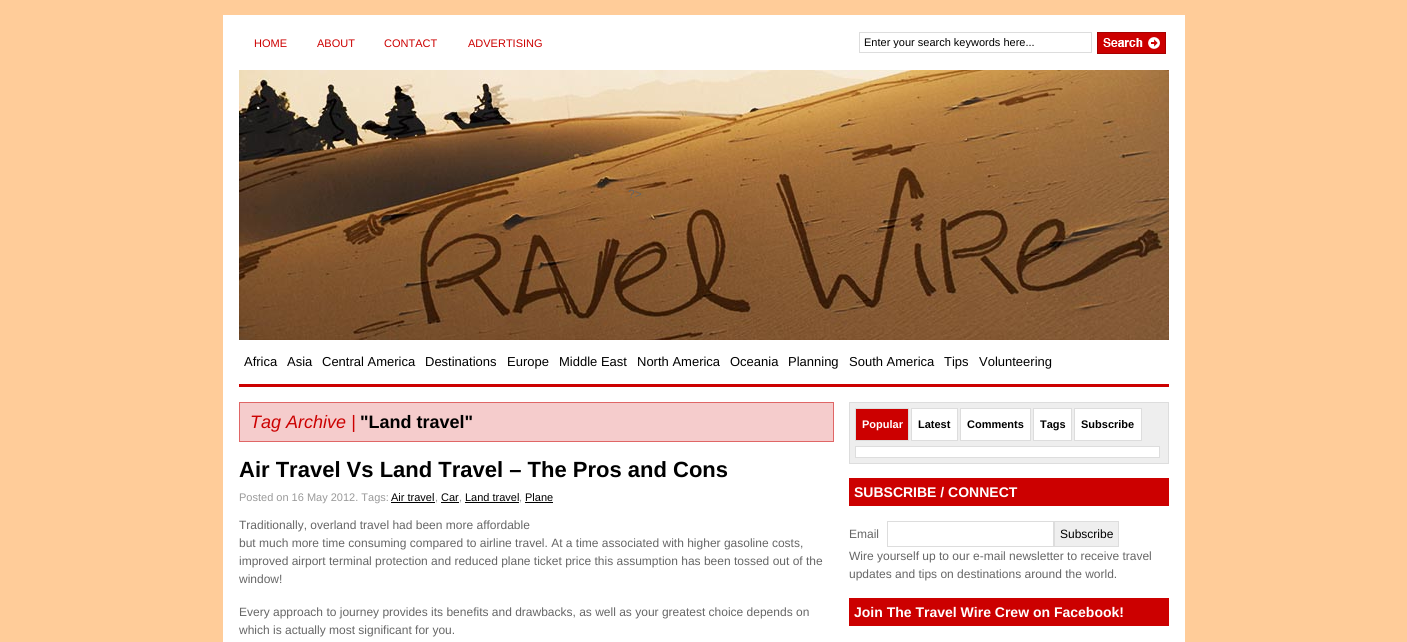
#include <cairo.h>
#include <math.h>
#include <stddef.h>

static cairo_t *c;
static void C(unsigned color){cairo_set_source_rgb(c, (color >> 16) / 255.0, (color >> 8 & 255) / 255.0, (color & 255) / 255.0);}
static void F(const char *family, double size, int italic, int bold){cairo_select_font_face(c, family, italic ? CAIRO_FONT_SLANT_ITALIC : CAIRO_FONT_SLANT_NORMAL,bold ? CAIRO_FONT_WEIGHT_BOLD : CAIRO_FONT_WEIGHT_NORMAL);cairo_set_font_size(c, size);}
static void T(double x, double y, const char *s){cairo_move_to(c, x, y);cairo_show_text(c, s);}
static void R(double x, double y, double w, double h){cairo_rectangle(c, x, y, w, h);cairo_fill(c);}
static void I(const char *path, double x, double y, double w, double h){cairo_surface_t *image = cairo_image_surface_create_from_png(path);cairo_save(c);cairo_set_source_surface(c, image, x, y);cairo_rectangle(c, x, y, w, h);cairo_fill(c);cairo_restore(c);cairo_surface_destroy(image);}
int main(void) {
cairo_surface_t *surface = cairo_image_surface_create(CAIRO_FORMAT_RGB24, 1407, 642);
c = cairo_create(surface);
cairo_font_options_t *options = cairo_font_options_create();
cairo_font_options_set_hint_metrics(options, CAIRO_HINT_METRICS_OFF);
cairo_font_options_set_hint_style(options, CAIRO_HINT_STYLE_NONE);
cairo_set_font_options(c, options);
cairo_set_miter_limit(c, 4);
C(0xffcc99);
cairo_paint(c);
C(0xffffff);
R(223,15,962,627);
F("Liberation Sans",11,0,0);
C(0xcc0000);
T(254,47,"HOME");
T(317,47,"ABOUT");
T(384,47,"CONTACT");
T(468,47,"ADVERTISING");
cairo_rectangle(c,859.5,32.5,232,20);
C(0xdddddd);
cairo_set_line_width(c,1);
cairo_stroke(c);
cairo_save(c);
cairo_rectangle(c,864,36,223,12);
cairo_clip(c);
C(0x000000);
T(864,46,"Enter your search keywords here...");
cairo_restore(c);
I("1.png",1097,32,69,22);
I("2.png",239,70,930,270);
F("Liberation Sans",12,0,0);
C(0x666666);
T(628,198,"?>");
C(0xf5cccc);
cairo_rectangle(c,239.5,402.5,594,39);
cairo_fill_preserve(c);
C(0xe06666);
cairo_stroke(c);
F("Liberation Sans",18,1,0);
C(0xcc0000);
T(250,428,"Tag Archive |");
F("Liberation Sans",18,0,1);
C(0x000000);
T(360,428,"\"Land travel\"");
F("Liberation Sans",22,0,1);
T(239,477,"Air Travel Vs Land Travel – The Pros and Cons");
F("Liberation Sans",11,0,0);
C(0x999999);
T(239,501,"Posted on 16 May 2012. Tags:");
C(0x000000);
T(391,501,"Air travel");
C(0x999999);
T(435,501,",");
C(0x000000);
R(391,502,44,1);
T(441,501,"Car");
C(0x999999);
T(459,501,",");
C(0x000000);
R(441,502,18,1);
T(465,501,"Land travel");
C(0x999999);
T(519,501,",");
C(0x000000);
R(465,502,54,1);
R(525,502,28,1);
T(525,501,"Plane");
F("Liberation Sans",12,0,0);
C(0x666666);
T(239,529,"Traditionally, overland travel had been more affordable");
T(239,547,"but much more time consuming compared to airline travel. At a time associated with higher gasoline costs,");
T(239,565,"improved airport terminal protection and reduced plane ticket price this assumption has been tossed out of the");
T(239,583,"window!");
T(239,616,"Every approach to journey provides its benefits and drawbacks, as well as your greatest choice depends on");
T(239,634,"which is actually most significant for you.");
C(0xeeeeee);
cairo_rectangle(c,849.5,402.5,319,61);
cairo_fill_preserve(c);
C(0xdddddd);
cairo_stroke(c);
cairo_rectangle(c,855.5,408.5,53,32);
cairo_stroke(c);
C(0xcc0000);
R(856,409,52,31);
F("Liberation Sans",11,0,1);
C(0xffffff);
T(862,428,"Popular");
cairo_rectangle(c,911.5,408.5,46,32);
cairo_fill_preserve(c);
C(0xdddddd);
cairo_stroke(c);
C(0x000000);
T(918,428,"Latest");
C(0xffffff);
cairo_rectangle(c,960.5,408.5,70,32);
cairo_fill_preserve(c);
C(0xdddddd);
cairo_stroke(c);
C(0x000000);
T(967,428,"Comments");
C(0xffffff);
cairo_rectangle(c,1033.5,408.5,38,32);
cairo_fill_preserve(c);
C(0xdddddd);
cairo_stroke(c);
C(0x000000);
T(1040,428,"Tags");
C(0xffffff);
cairo_rectangle(c,1074.5,408.5,67,32);
cairo_fill_preserve(c);
C(0xdddddd);
cairo_stroke(c);
C(0x000000);
T(1081,428,"Subscribe");
C(0xffffff);
cairo_rectangle(c,855.5,446.5,304,11);
cairo_fill_preserve(c);
C(0xdddddd);
cairo_stroke(c);
C(0xcc0000);
R(849,478,320,28);
F("Liberation Sans",14,0,1);
C(0xffffff);
T(854,497,"SUBSCRIBE / CONNECT");
F("Liberation Sans",12,0,0);
C(0x666666);
T(849,538,"Email");
cairo_rectangle(c,887.5,521.5,166,25);
C(0xdddddd);
cairo_stroke(c);
C(0xefefef);
cairo_rectangle(c,1054.5,521.5,64,25);
cairo_fill_preserve(c);
C(0xdddddd);
cairo_stroke(c);
C(0x000000);
T(1060,538,"Subscribe");
C(0x666666);
T(849,560,"Wire yourself up to our e-mail newsletter to receive travel");
T(849,578,"updates and tips on destinations around the world.");
C(0xcc0000);
R(849,598,320,28);
F("Liberation Sans",14,0,1);
C(0xffffff);
T(854,617,"Join The Travel Wire Crew on Facebook!");
C(0xcc0000);
R(239,384,930,3);
F("Liberation Sans",13,0,0);
C(0x000000);
T(244,366,"Africa");
T(287,366,"Asia");
T(322,366,"Central America");
T(425,366,"Destinations");
T(507,366,"Europe");
T(559,366,"Middle East");
T(637,366,"North America");
T(730,366,"Oceania");
T(788,366,"Planning");
T(849,366,"South America");
T(944,366,"Tips");
T(979,366,"Volunteering");
cairo_surface_write_to_png(surface, "o.png");
cairo_font_options_destroy(options);
cairo_destroy(c);
cairo_surface_destroy(surface);
return 0;
}
